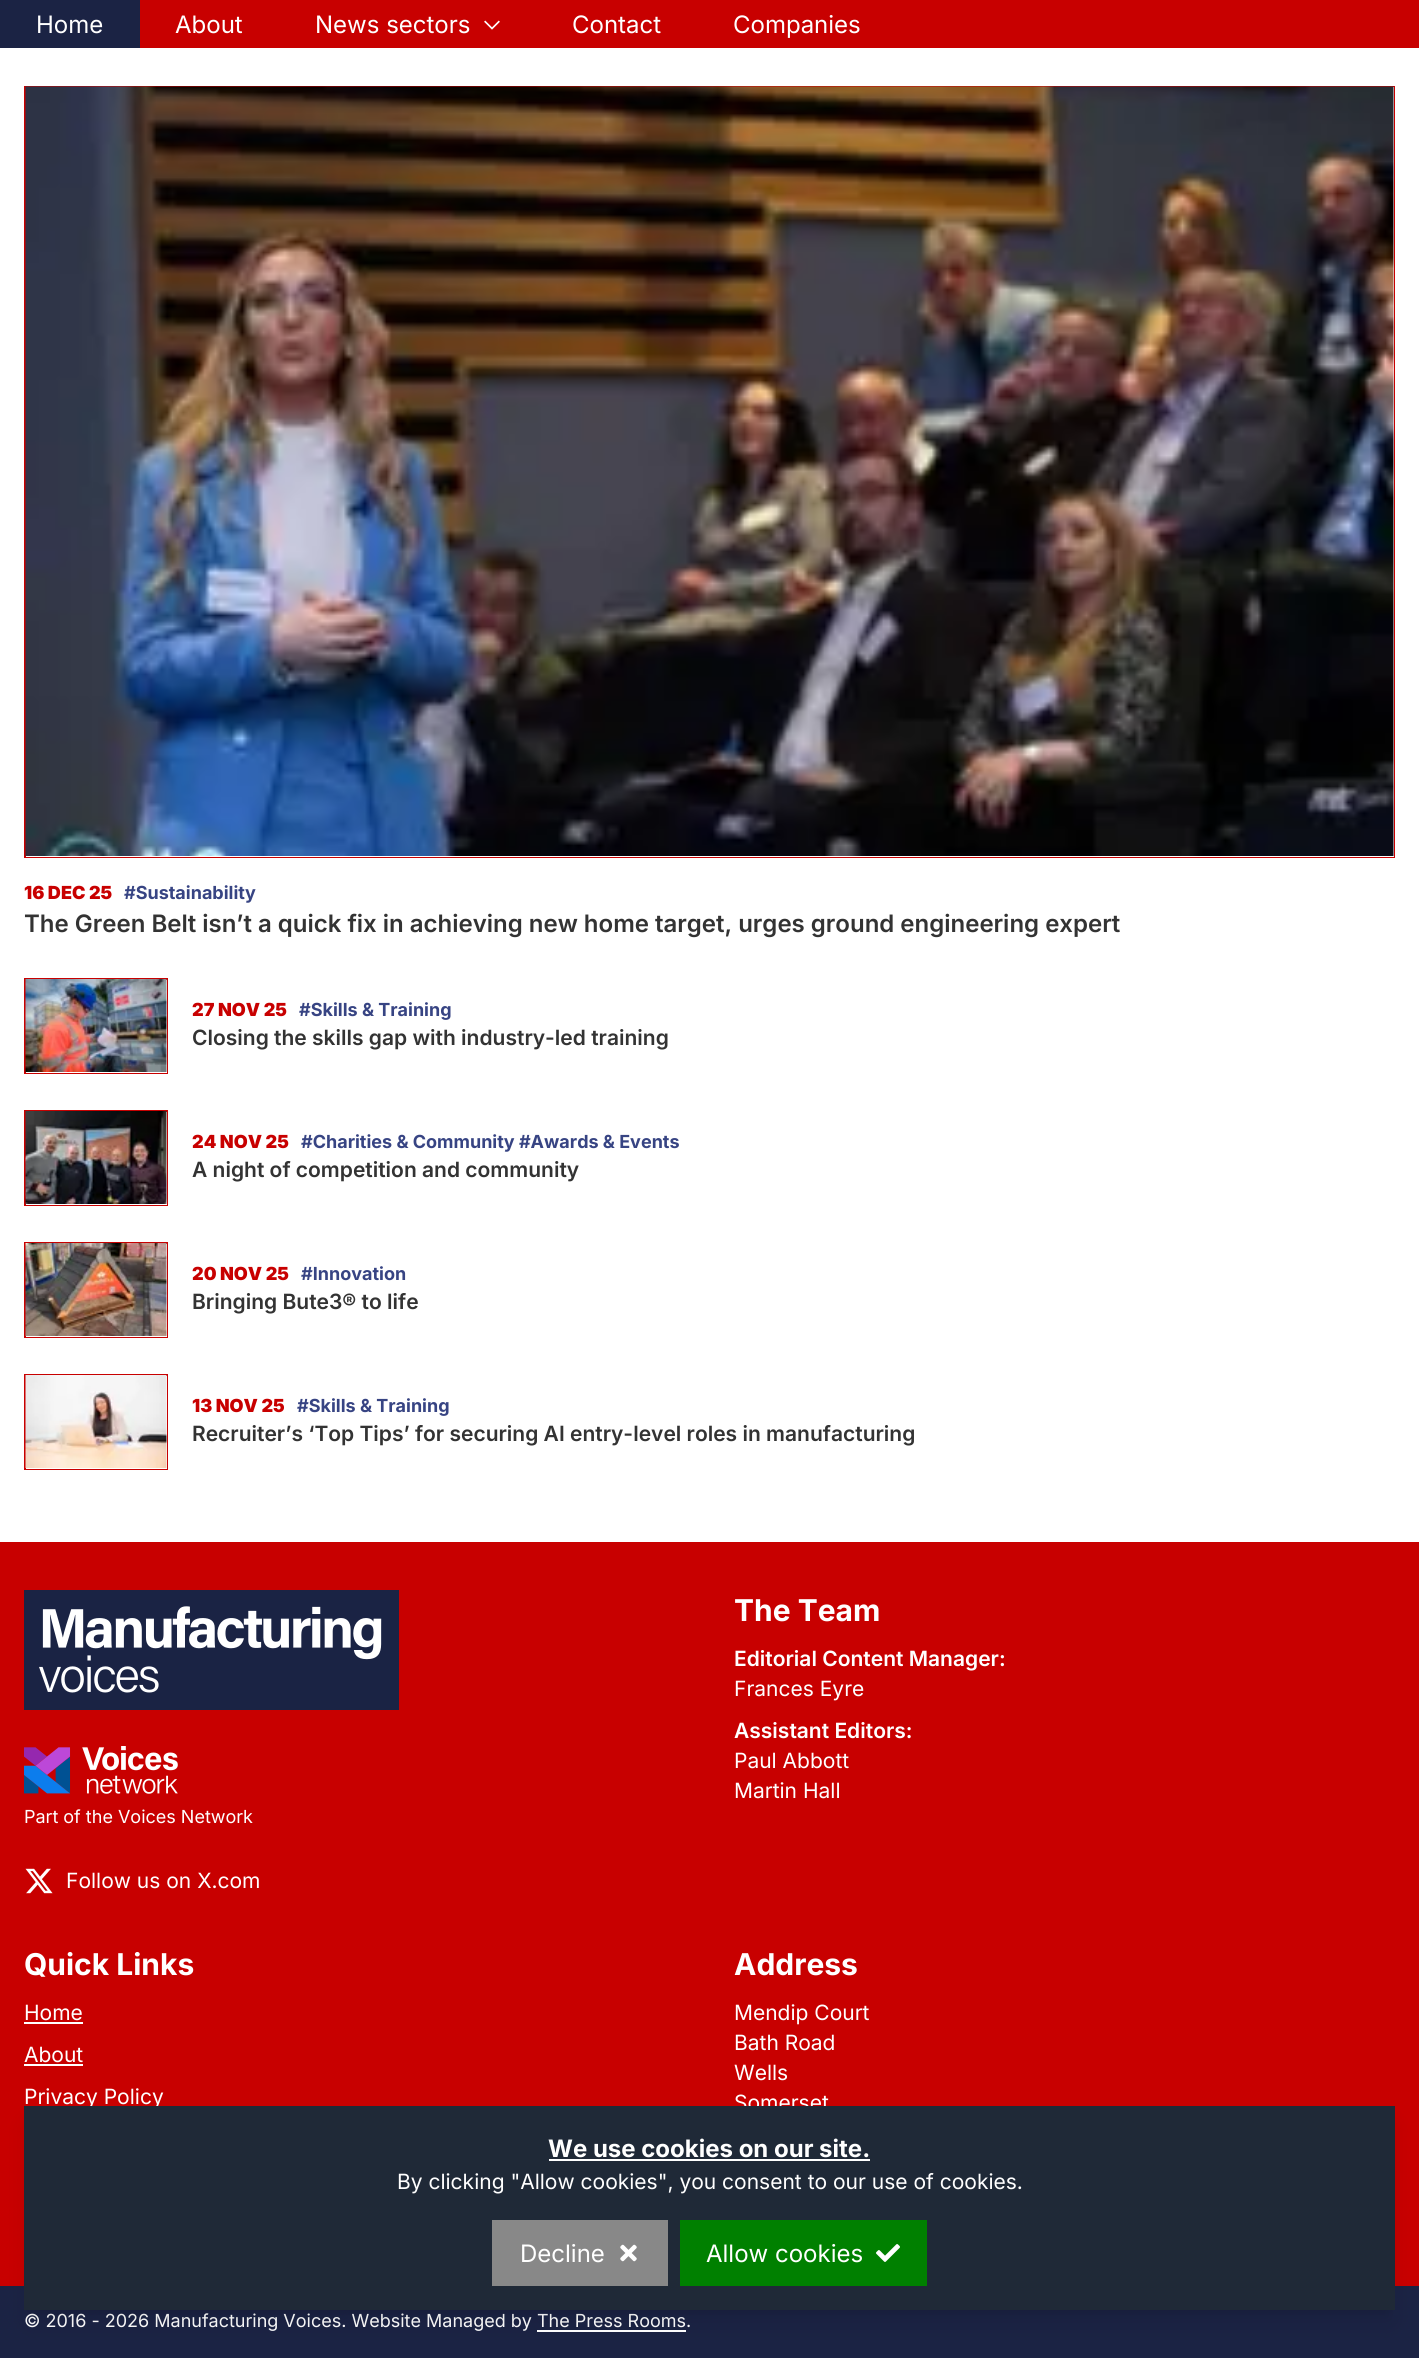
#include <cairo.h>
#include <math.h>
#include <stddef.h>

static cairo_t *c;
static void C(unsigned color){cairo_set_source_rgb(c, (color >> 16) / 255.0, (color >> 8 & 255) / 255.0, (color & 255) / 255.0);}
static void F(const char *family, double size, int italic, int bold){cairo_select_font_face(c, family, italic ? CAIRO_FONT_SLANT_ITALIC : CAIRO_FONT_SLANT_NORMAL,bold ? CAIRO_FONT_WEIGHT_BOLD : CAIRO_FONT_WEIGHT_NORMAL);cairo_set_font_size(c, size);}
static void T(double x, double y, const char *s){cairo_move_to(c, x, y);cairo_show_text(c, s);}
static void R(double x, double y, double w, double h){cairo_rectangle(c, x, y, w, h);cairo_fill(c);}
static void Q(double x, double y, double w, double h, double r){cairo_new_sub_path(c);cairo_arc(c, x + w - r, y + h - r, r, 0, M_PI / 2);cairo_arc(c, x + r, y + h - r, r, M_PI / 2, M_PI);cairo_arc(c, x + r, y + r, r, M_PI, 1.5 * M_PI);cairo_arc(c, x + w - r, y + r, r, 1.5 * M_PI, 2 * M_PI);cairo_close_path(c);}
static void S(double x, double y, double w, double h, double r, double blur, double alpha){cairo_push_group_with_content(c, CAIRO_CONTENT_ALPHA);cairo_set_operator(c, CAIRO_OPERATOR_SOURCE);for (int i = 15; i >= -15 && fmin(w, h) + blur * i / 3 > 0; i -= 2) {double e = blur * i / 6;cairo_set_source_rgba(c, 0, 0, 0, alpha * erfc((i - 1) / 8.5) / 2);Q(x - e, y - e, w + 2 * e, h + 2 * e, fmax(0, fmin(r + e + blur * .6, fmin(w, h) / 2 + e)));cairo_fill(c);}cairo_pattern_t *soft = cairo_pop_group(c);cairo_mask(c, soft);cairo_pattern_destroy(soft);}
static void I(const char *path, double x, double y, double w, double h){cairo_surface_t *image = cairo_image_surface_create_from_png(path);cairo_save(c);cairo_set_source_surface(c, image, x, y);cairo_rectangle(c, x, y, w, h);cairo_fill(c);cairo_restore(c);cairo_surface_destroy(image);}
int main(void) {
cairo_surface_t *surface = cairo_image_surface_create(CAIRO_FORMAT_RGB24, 1419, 2358);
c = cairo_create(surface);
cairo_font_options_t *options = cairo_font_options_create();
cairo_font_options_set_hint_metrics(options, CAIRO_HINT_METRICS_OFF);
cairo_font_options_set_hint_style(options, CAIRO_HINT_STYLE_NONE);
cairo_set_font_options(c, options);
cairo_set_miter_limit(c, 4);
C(0xffffff);
cairo_paint(c);
C(0xc80000);
R(140,0,1279,48);
C(0x1b2344);
R(0,0,140,48);
F("Inter",24,0,0);
C(0xffffff);
T(36,33,"Home");
T(175,33,"About");
T(315,33,"News sectors");
I("1.png",484,20,16,10);
T(572,33,"Contact");
T(733,33,"Companies");
cairo_rectangle(c,25,87,1369,770);
C(0xc80000);
cairo_stroke(c);
C(0xffffff);
R(26,87,1368,770);
I("2.png",25,86,1369,770);
F("Inter Black",18,0,0);
C(0xc80000);
T(24,899,"16 DEC 25");
F("Inter",18,0,1);
C(0x374483);
T(124,899,"#Sustainability");
F("Inter SemiBold",24,0,0);
C(0x333333);
T(24,932,"The Green Belt isn’t a quick fix in achieving new home target, urges ground engineering expert");
cairo_rectangle(c,25,979,142,94);
C(0xc80000);
cairo_stroke(c);
C(0xffffff);
R(26,980,141,93);
I("3.png",25,979,142,93);
F("Inter Black",18,0,0);
C(0xc80000);
T(192,1016,"27 NOV 25");
F("Inter",18,0,1);
C(0x374483);
T(299,1016,"#Skills & Training");
F("Inter SemiBold",21,0,0);
C(0x333333);
T(192,1045,"Closing the skills gap with industry-led training");
cairo_rectangle(c,25,1111,142,94);
C(0xc80000);
cairo_stroke(c);
C(0xffffff);
R(26,1112,141,93);
I("4.png",25,1111,142,93);
F("Inter Black",18,0,0);
C(0xc80000);
T(192,1148,"24 NOV 25");
F("Inter",18,0,1);
C(0x374483);
T(301,1148,"#Charities & Community #Awards & Events");
F("Inter SemiBold",21,0,0);
C(0x333333);
T(192,1177,"A night of competition and community");
cairo_rectangle(c,25,1243,142,94);
C(0xc80000);
cairo_stroke(c);
C(0xffffff);
R(26,1244,141,93);
I("5.png",25,1243,142,93);
F("Inter Black",18,0,0);
C(0xc80000);
T(192,1280,"20 NOV 25");
F("Inter",18,0,1);
C(0x374483);
T(301,1280,"#Innovation");
F("Inter SemiBold",21,0,0);
C(0x333333);
T(192,1309,"Bringing Bute3® to life");
cairo_rectangle(c,25,1375,142,94);
C(0xc80000);
cairo_stroke(c);
C(0xffffff);
R(26,1376,141,93);
I("6.png",25,1375,142,93);
F("Inter Black",18,0,0);
C(0xc80000);
T(192,1412,"13 NOV 25");
F("Inter",18,0,1);
C(0x374483);
T(297,1412,"#Skills & Training");
F("Inter SemiBold",21,0,0);
C(0x333333);
T(192,1441,"Recruiter’s ‘Top Tips’ for securing AI entry-level roles in manufacturing");
C(0xc80000);
R(0,1542,1419,744);
F("Inter",30,0,1);
C(0xffffff);
T(734,1621,"The Team");
F("Inter SemiBold",21,0,0);
T(734,1666,"Editorial Content Manager:");
F("Inter",21,0,0);
T(734,1696,"Frances Eyre");
F("Inter SemiBold",21,0,0);
T(734,1738,"Assistant Editors:");
F("Inter",21,0,0);
T(734,1768,"Paul Abbott");
T(734,1798,"Martin Hall");
I("7.png",24,1590,375,120);
I("8.png",24,1746,154,48);
F("Inter",18,0,0);
T(24,1823,"Part of the Voices Network");
I("9.png",25,1868,28,26);
F("Inter",21,0,0);
T(66,1888,"Follow us on X.com");
F("Inter",30,0,1);
T(24,1975,"Quick Links");
F("Inter",21,0,0);
T(24,2020,"Home");
R(24,2022,59,2);
T(24,2062,"About");
R(24,2064,59,2);
T(24,2104,"Privacy Policy");
F("Inter",30,0,1);
T(734,1975,"Address");
F("Inter",21,0,0);
T(734,2020,"Mendip Court");
T(734,2050,"Bath Road");
T(734,2080,"Wells");
T(734,2110,"Somerset");
C(0x1b2344);
R(0,2286,1419,72);
F("Inter",18,0,0);
C(0xffffff);
T(24,2327,"© 2016 - 2026 Manufacturing Voices. Website Managed by The Press Rooms.");
R(537,2330,149,2);
C(0x000000);
S(30,2118,1359,192,0,4.5,.1);
S(29,2126,1362,195,0,11,.1);
C(0x1f2937);
R(24,2106,1371,204);
F("Inter",24,0,1);
C(0xffffff);
T(548,2157,"We use cookies on our site.");
R(549,2159,321,2);
F("Inter",21,0,0);
T(397,2189,"By clicking \"Allow cookies\", you consent to our use of cookies.");
C(0x888888);
R(492,2220,176,66);
F("Inter",24,0,0);
C(0xffffff);
T(520,2262,"Decline");
I("10.png",620,2244,17,18);
C(0x008000);
R(680,2220,247,66);
C(0xffffff);
T(706,2262,"Allow cookies");
I("11.png",876,2244,24,18);
cairo_surface_write_to_png(surface, "o.png");
cairo_font_options_destroy(options);
cairo_destroy(c);
cairo_surface_destroy(surface);
return 0;
}
